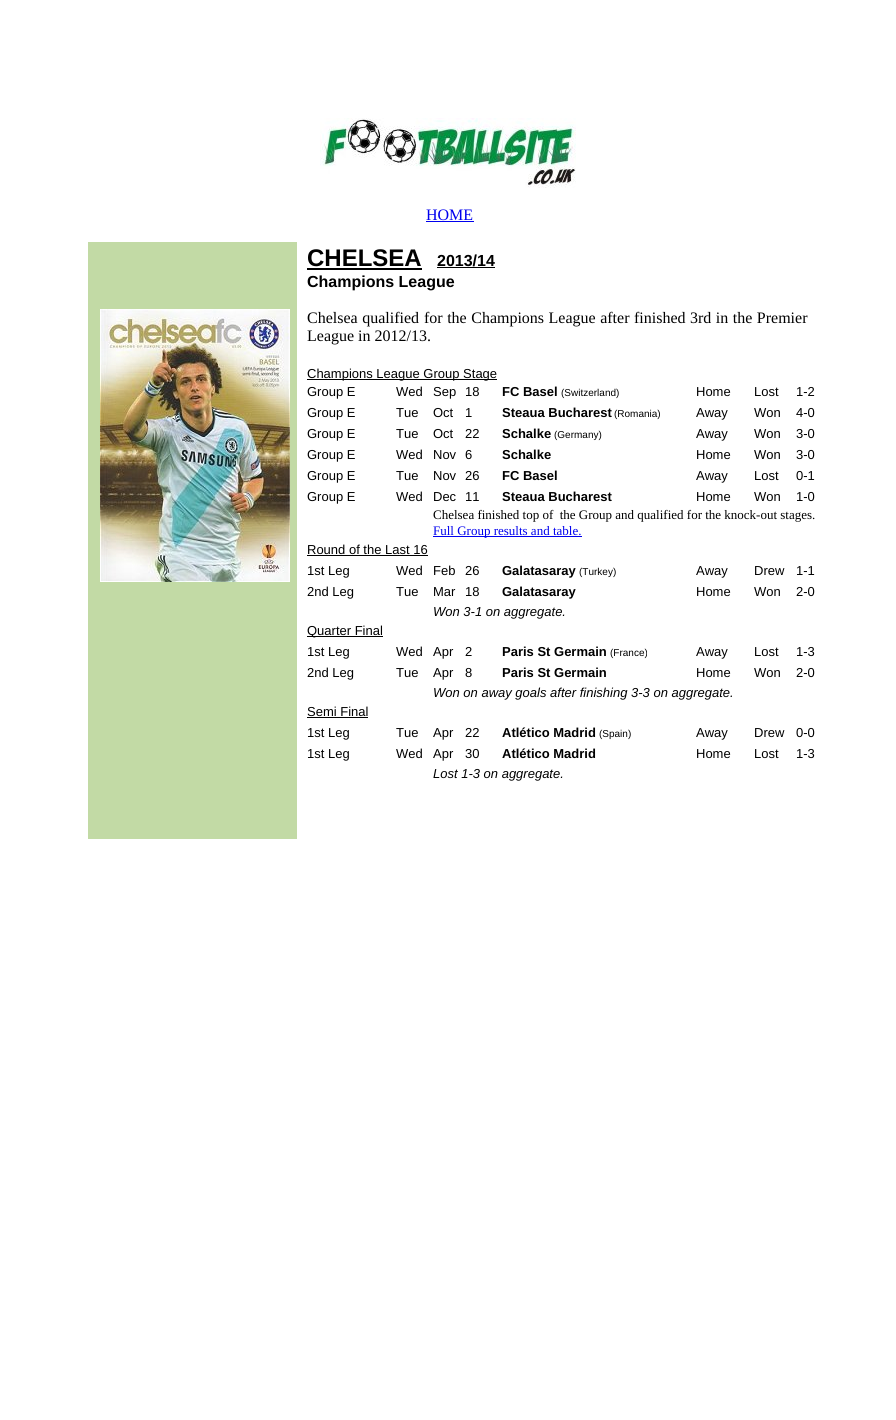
#include <cairo.h>
#include <math.h>
#include <stddef.h>

static cairo_t *c;
static void C(unsigned color){cairo_set_source_rgb(c, (color >> 16) / 255.0, (color >> 8 & 255) / 255.0, (color & 255) / 255.0);}
static void F(const char *family, double size, int italic, int bold){cairo_select_font_face(c, family, italic ? CAIRO_FONT_SLANT_ITALIC : CAIRO_FONT_SLANT_NORMAL,bold ? CAIRO_FONT_WEIGHT_BOLD : CAIRO_FONT_WEIGHT_NORMAL);cairo_set_font_size(c, size);}
static void T(double x, double y, const char *s){cairo_move_to(c, x, y);cairo_show_text(c, s);}
static void L(double x, double y, const char *s, double letter, double word){cairo_move_to(c, x, y);while (*s) {char ch[5] = {0};int n = 0;do ch[n++] = *s++; while ((*s & 0xC0) == 0x80);cairo_show_text(c, ch);cairo_rel_move_to(c, letter + word * (*ch == ' '), 0);}}
static void R(double x, double y, double w, double h){cairo_rectangle(c, x, y, w, h);cairo_fill(c);}
static void I(const char *path, double x, double y, double w, double h){cairo_surface_t *image = cairo_image_surface_create_from_png(path);cairo_save(c);cairo_set_source_surface(c, image, x, y);cairo_rectangle(c, x, y, w, h);cairo_fill(c);cairo_restore(c);cairo_surface_destroy(image);}
int main(void) {
cairo_surface_t *surface = cairo_image_surface_create(CAIRO_FORMAT_RGB24, 896, 1420);
c = cairo_create(surface);
cairo_font_options_t *options = cairo_font_options_create();
cairo_font_options_set_hint_metrics(options, CAIRO_HINT_METRICS_OFF);
cairo_font_options_set_hint_style(options, CAIRO_HINT_STYLE_NONE);
cairo_set_font_options(c, options);
cairo_set_miter_limit(c, 4);
C(0xffffff);
cairo_paint(c);
I("1.png",320,118,256,70);
F("Liberation Serif",16,0,0);
C(0x0000ee);
T(426,220,"HOME");
R(426,221,48,1);
C(0xc2daa5);
R(88,242,209,31);
F("Liberation Sans",24,0,1);
C(0x000000);
T(307,266,"CHELSEA");
R(307,268,115,2);
F("Liberation Sans",16,0,1);
T(437,266,"2013/14");
R(437,267,58,1);
C(0xc2daa5);
R(88,273,209,18);
C(0x000000);
T(307,287,"Champions League");
C(0xc2daa5);
R(88,291,209,18);
R(88,309,9,530);
R(97,309,196,530);
I("2.png",100,309,190,273);
R(293,309,4,530);
F("Liberation Serif",16,0,0);
C(0x000000);
L(307,323,"Chelsea qualified",0,.5);
L(424,323,"for the Champions League after finished 3rd in the Premier",0,.5);
T(307,341,"League in 2012/13.");
R(307,379,190,1);
F("Liberation Sans",13,0,0);
T(307,378,"Champions League Group Stage");
T(307,396,"Group E");
T(396,396,"Wed");
T(433,396,"Sep");
T(465,396,"18");
F("Liberation Sans",13,0,1);
T(502,396,"FC Basel");
F("Liberation Sans",10,0,0);
T(561,396,"(Switzerland)");
F("Liberation Sans",13,0,0);
T(696,396,"Home");
T(754,396,"Lost");
T(796,396,"1-2");
T(307,417,"Group E");
T(396,417,"Tue");
T(433,417,"Oct");
T(465,417,"1");
F("Liberation Sans",13,0,1);
T(502,417,"Steaua Bucharest");
F("Liberation Sans",10,0,0);
T(614,417,"(Romania)");
F("Liberation Sans",13,0,0);
T(696,417,"Away");
T(754,417,"Won");
T(796,417,"4-0");
T(307,438,"Group E");
T(396,438,"Tue");
T(433,438,"Oct");
T(465,438,"22");
F("Liberation Sans",13,0,1);
T(502,438,"Schalke");
F("Liberation Sans",10,0,0);
T(554,438,"(Germany)");
F("Liberation Sans",13,0,0);
T(696,438,"Away");
T(754,438,"Won");
T(796,438,"3-0");
T(307,459,"Group E");
T(396,459,"Wed");
T(433,459,"Nov");
T(465,459,"6");
F("Liberation Sans",13,0,1);
T(502,459,"Schalke");
F("Liberation Sans",13,0,0);
T(696,459,"Home");
T(754,459,"Won");
T(796,459,"3-0");
T(307,480,"Group E");
T(396,480,"Tue");
T(433,480,"Nov");
T(465,480,"26");
F("Liberation Sans",13,0,1);
T(502,480,"FC Basel");
F("Liberation Sans",13,0,0);
T(696,480,"Away");
T(754,480,"Lost");
T(796,480,"0-1");
T(307,501,"Group E");
T(396,501,"Wed");
T(433,501,"Dec");
T(465,501,"11");
F("Liberation Sans",13,0,1);
T(502,501,"Steaua Bucharest");
F("Liberation Sans",13,0,0);
T(696,501,"Home");
T(754,501,"Won");
T(796,501,"1-0");
F("Liberation Serif",13,0,0);
T(433,519,"Chelsea finished top of  the Group and qualified for the knock-out stages.");
C(0x0000ee);
R(433,536,149,1);
T(433,535,"Full Group results and table.");
F("Liberation Sans",13,0,0);
C(0x000000);
T(307,554,"Round of the Last 16");
R(307,555,121,1);
T(307,575,"1st Leg");
T(396,575,"Wed");
T(433,575,"Feb");
T(465,575,"26");
F("Liberation Sans",13,0,1);
T(502,575,"Galatasaray");
F("Liberation Sans",10,0,0);
T(579,575,"(Turkey)");
F("Liberation Sans",13,0,0);
T(696,575,"Away");
T(754,575,"Drew");
T(796,575,"1-1");
T(307,596,"2nd Leg");
T(396,596,"Tue");
T(433,596,"Mar");
T(465,596,"18");
F("Liberation Sans",13,0,1);
T(502,596,"Galatasaray");
F("Liberation Sans",13,0,0);
T(696,596,"Home");
T(754,596,"Won");
T(796,596,"2-0");
F("Liberation Sans",13,1,0);
T(433,616,"Won 3-1 on aggregate.");
R(307,636,76,1);
F("Liberation Sans",13,0,0);
T(307,635,"Quarter Final");
T(307,656,"1st Leg");
T(396,656,"Wed");
T(433,656,"Apr");
T(465,656,"2");
F("Liberation Sans",13,0,1);
T(502,656,"Paris St Germain");
F("Liberation Sans",10,0,0);
T(610,656,"(France)");
F("Liberation Sans",13,0,0);
T(696,656,"Away");
T(754,656,"Lost");
T(796,656,"1-3");
T(307,677,"2nd Leg");
T(396,677,"Tue");
T(433,677,"Apr");
T(465,677,"8");
F("Liberation Sans",13,0,1);
T(502,677,"Paris St Germain");
F("Liberation Sans",13,0,0);
T(696,677,"Home");
T(754,677,"Won");
T(796,677,"2-0");
F("Liberation Sans",13,1,0);
T(433,697,"Won on away goals after finishing 3-3 on aggregate.");
F("Liberation Sans",13,0,0);
T(307,716,"Semi Final");
R(307,717,61,1);
T(307,737,"1st Leg");
T(396,737,"Tue");
T(433,737,"Apr");
T(465,737,"22");
F("Liberation Sans",13,0,1);
T(502,737,"Atlético Madrid");
F("Liberation Sans",10,0,0);
T(599,737,"(Spain)");
F("Liberation Sans",13,0,0);
T(696,737,"Away");
T(754,737,"Drew");
T(796,737,"0-0");
T(307,758,"1st Leg");
T(396,758,"Wed");
T(433,758,"Apr");
T(465,758,"30");
F("Liberation Sans",13,0,1);
T(502,758,"Atlético Madrid");
F("Liberation Sans",13,0,0);
T(696,758,"Home");
T(754,758,"Lost");
T(796,758,"1-3");
F("Liberation Sans",13,1,0);
T(433,778,"Lost 1-3 on aggregate.");
cairo_surface_write_to_png(surface, "o.png");
cairo_font_options_destroy(options);
cairo_destroy(c);
cairo_surface_destroy(surface);
return 0;
}
